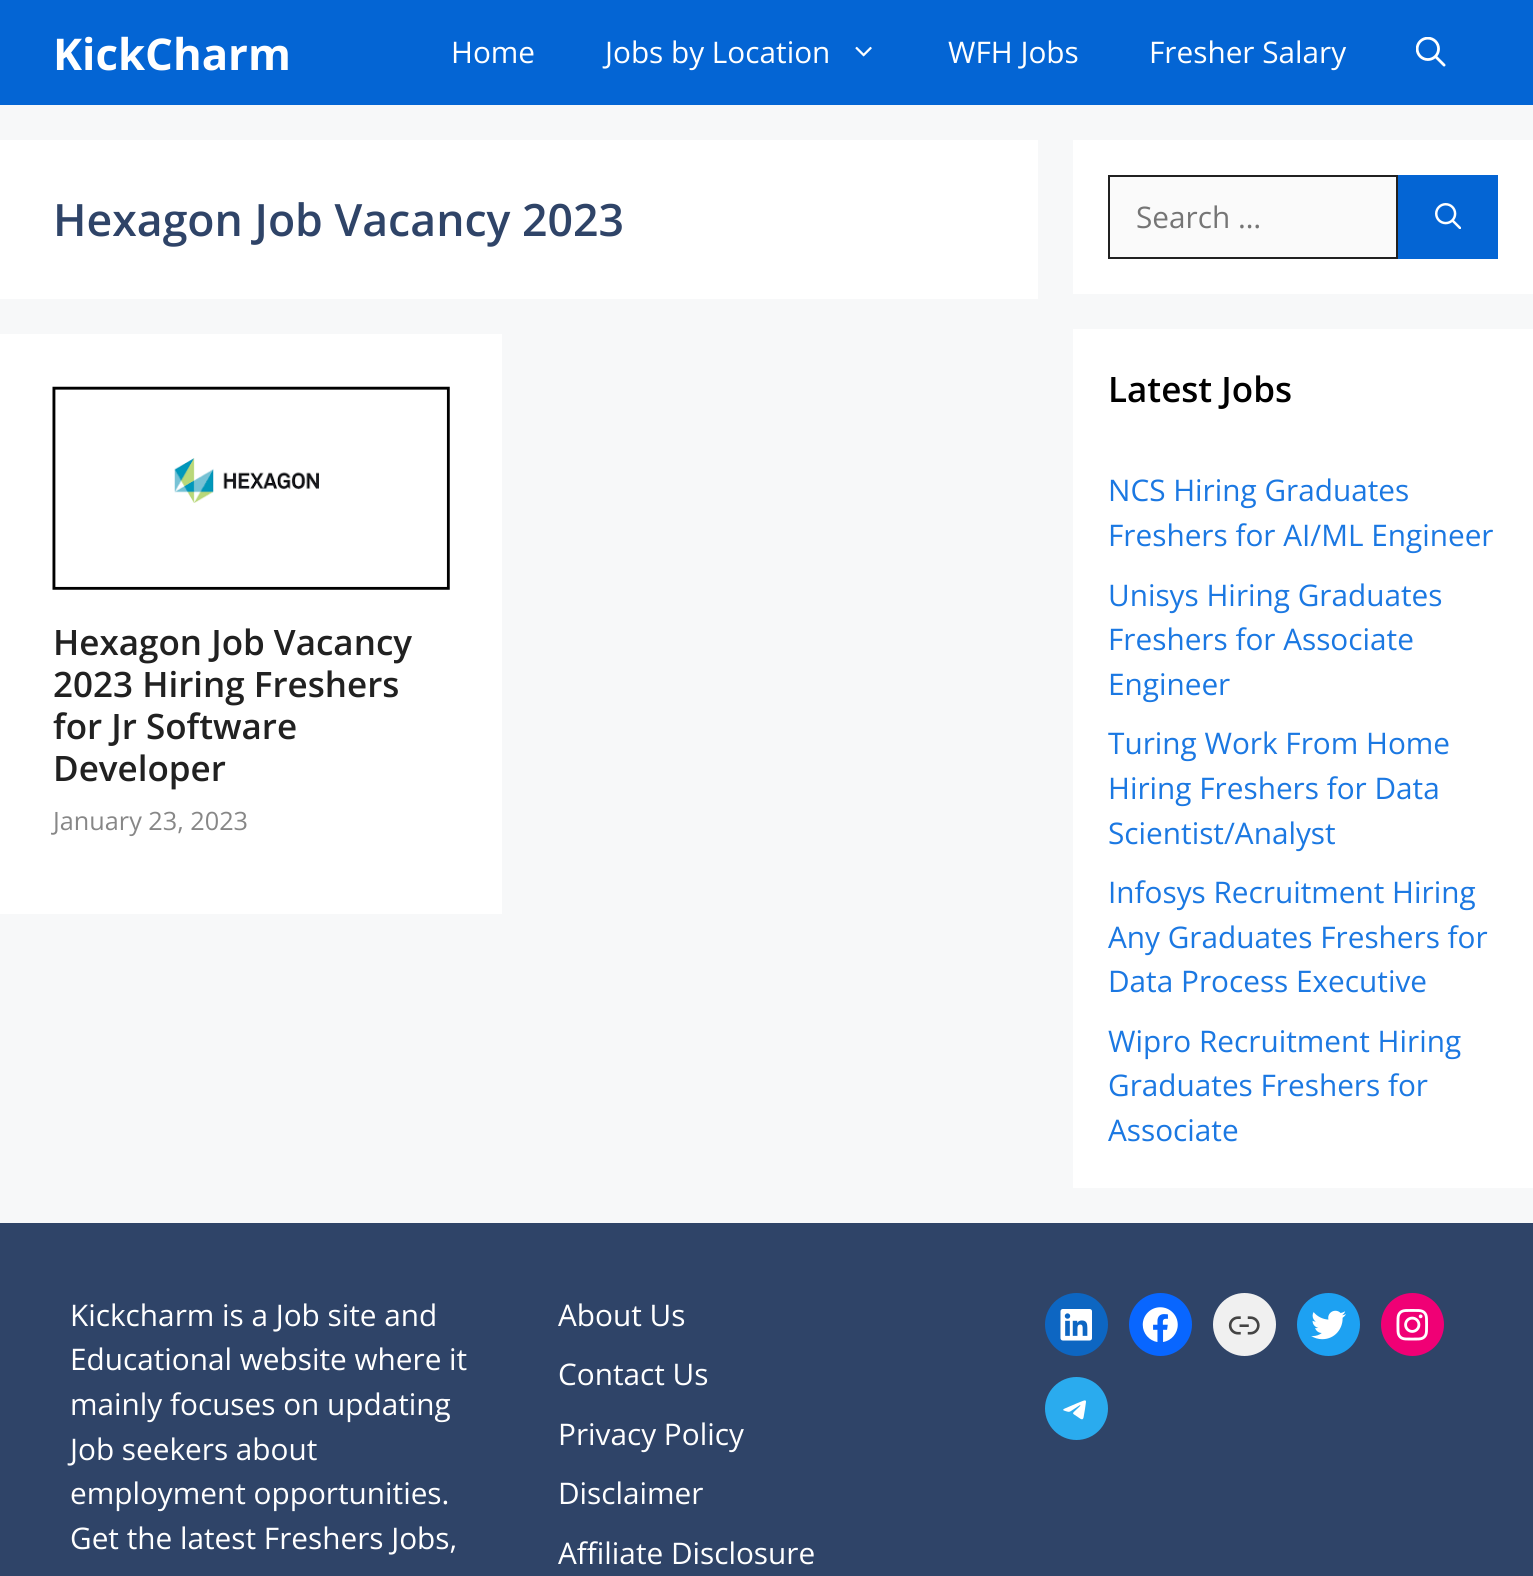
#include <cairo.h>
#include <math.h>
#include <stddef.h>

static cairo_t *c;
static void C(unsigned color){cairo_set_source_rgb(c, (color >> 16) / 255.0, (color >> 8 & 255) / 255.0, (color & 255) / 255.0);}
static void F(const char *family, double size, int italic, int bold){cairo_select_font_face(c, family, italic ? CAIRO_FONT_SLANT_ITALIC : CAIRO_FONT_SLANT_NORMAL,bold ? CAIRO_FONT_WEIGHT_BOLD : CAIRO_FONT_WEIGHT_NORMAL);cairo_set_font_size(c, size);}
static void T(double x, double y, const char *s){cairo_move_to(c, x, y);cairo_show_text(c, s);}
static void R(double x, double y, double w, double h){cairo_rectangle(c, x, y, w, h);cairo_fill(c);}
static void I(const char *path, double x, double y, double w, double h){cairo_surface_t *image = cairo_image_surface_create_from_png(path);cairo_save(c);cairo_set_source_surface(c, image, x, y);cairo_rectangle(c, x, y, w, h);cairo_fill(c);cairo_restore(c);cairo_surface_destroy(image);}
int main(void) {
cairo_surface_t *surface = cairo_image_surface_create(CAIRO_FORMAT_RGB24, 1533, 1576);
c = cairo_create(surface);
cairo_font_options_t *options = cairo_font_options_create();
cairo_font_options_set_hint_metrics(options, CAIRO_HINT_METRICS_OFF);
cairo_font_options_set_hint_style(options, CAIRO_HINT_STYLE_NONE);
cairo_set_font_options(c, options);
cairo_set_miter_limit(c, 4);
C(0xf7f8f9);
cairo_paint(c);
C(0x0465d4);
R(0,0,1533,105);
F("Open Sans",43.75,0,1);
C(0xffffff);
T(53,70,"KickCharm");
F("Open Sans",29.75,0,0);
T(451,63,"Home");
T(605,63,"Jobs by Location");
I("1.png",855,46,17,11);
T(948,63,"WFH Jobs");
T(1149,63,"Fresher Salary");
I("2.png",1416,37,30,30);
R(0,140,1038,159);
F("Open Sans SemiBold",44.6,0,0);
C(0x2f4468);
T(53,236,"Hexagon Job Vacancy 2023");
C(0xffffff);
R(0,334,502,580);
I("3.png",52,386,398,204);
F("Open Sans SemiBold",35,0,0);
C(0x212121);
T(53,655,"Hexagon Job Vacancy");
T(53,697,"2023 Hiring Freshers");
T(53,739,"for Jr Software");
T(53,781,"Developer");
F("Open Sans",25.25,0,0);
C(0x878787);
T(53,830,"January 23, 2023");
C(0xffffff);
R(1073,140,460,154);
C(0xfafafa);
cairo_rectangle(c,1109,176,288,82);
cairo_fill_preserve(c);
C(0x212121);
cairo_stroke(c);
F("Open Sans",29.75,0,0);
C(0x757575);
T(1136,228,"Search …");
C(0x0465d4);
R(1398,175,100,84);
I("4.png",1435,203,26,26);
C(0xffffff);
R(1073,329,460,859);
F("Open Sans SemiBold",35,0,0);
C(0x000000);
T(1108,402,"Latest Jobs");
F("Open Sans",29.75,0,0);
C(0x1b78e2);
T(1108,501,"NCS Hiring Graduates");
T(1108,546,"Freshers for AI/ML Engineer");
T(1108,606,"Unisys Hiring Graduates");
T(1108,650,"Freshers for Associate");
T(1108,695,"Engineer");
T(1108,754,"Turing Work From Home");
T(1108,799,"Hiring Freshers for Data");
T(1108,844,"Scientist/Analyst");
T(1108,903,"Infosys Recruitment Hiring");
T(1108,948,"Any Graduates Freshers for");
T(1108,992,"Data Process Executive");
T(1108,1052,"Wipro Recruitment Hiring");
T(1108,1096,"Graduates Freshers for");
T(1108,1141,"Associate");
C(0x2f4468);
R(0,1223,1533,353);
C(0xffffff);
T(70,1326,"Kickcharm is a Job site and");
T(70,1370,"Educational website where it");
T(70,1415,"mainly focuses on updating");
T(70,1460,"Job seekers about");
T(70,1504,"employment opportunities.");
T(70,1549,"Get the latest Freshers Jobs,");
T(558,1326,"About Us");
T(558,1385,"Contact Us");
T(558,1445,"Privacy Policy");
T(558,1504,"Disclaimer");
T(558,1564,"Affiliate Disclosure");
C(0x0d66c2);
cairo_new_path(c);
cairo_arc(c,1076.5,1324.5,31.5,0,2 * M_PI);
cairo_fill(c);
I("5.png",1060,1309,32,32);
C(0x0866ff);
cairo_arc(c,1160.5,1324.5,31.5,0,2 * M_PI);
cairo_fill(c);
I("6.png",1142,1307,36,35);
C(0xf0f0f0);
cairo_arc(c,1244.5,1324.5,31.5,0,2 * M_PI);
cairo_fill(c);
I("7.png",1228,1316,32,19);
C(0x1da1f2);
cairo_arc(c,1328.5,1324.5,31.5,0,2 * M_PI);
cairo_fill(c);
I("8.png",1311,1310,35,30);
C(0xf00075);
cairo_arc(c,1412.5,1324.5,31.5,0,2 * M_PI);
cairo_fill(c);
I("9.png",1396,1309,32,32);
C(0x2aabee);
cairo_arc(c,1076.5,1408.5,31.5,0,2 * M_PI);
cairo_fill(c);
I("10.png",1063,1400,23,20);
cairo_surface_write_to_png(surface, "o.png");
cairo_font_options_destroy(options);
cairo_destroy(c);
cairo_surface_destroy(surface);
return 0;
}
